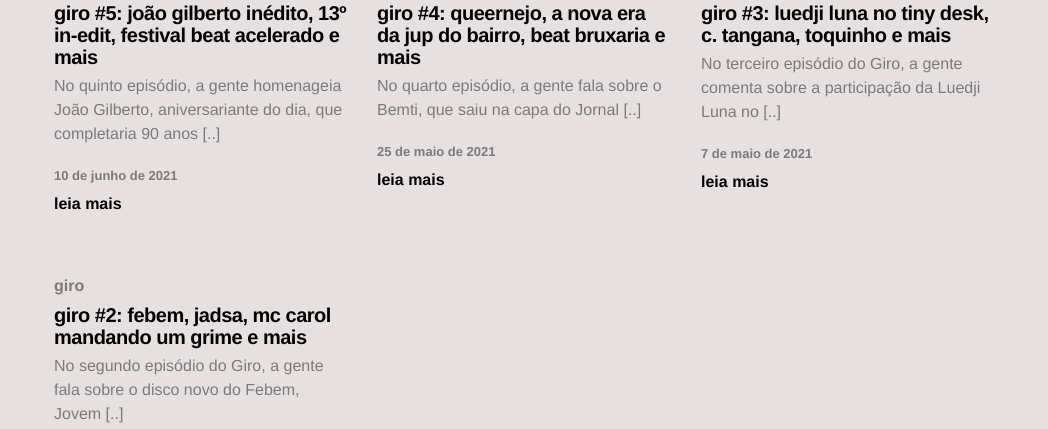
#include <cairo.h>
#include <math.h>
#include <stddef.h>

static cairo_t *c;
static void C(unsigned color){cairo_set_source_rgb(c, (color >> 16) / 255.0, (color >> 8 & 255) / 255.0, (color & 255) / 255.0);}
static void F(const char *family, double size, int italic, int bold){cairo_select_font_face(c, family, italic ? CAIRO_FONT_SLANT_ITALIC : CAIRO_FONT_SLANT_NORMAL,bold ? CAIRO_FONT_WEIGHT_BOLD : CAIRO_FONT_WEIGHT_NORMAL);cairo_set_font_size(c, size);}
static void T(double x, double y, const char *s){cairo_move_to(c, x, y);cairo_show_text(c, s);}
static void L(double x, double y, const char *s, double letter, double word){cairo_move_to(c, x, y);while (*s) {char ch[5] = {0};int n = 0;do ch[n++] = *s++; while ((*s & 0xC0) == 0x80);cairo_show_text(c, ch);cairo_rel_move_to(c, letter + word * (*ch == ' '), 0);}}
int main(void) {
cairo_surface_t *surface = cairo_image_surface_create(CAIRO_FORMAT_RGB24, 1048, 429);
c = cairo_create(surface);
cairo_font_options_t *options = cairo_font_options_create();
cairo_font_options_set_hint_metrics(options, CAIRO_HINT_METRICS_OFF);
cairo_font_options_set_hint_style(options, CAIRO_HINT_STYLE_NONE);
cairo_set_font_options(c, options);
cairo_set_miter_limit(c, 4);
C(0xe6e1e0);
cairo_paint(c);
F("Liberation Sans",20,0,1);
C(0x000000);
L(54,20,"giro #5: joão gilberto inédito, 13º",-.5,0);
L(54,42,"in-edit, festival beat acelerado e",-.5,0);
L(54,64,"mais",-.5,0);
F("Liberation Sans",16,0,0);
C(0x7a7a7a);
T(54,91,"No quinto episódio, a gente homenageia");
T(54,115,"João Gilberto, aniversariante do dia, que");
T(54,139,"completaria 90 anos [..]");
F("Liberation Sans",13,0,1);
T(54,180,"10 de junho de 2021");
F("Liberation Sans",16,0,1);
C(0x000000);
T(54,209,"leia mais");
F("Liberation Sans",20,0,1);
L(377,20,"giro #4: queernejo, a nova era",-.5,0);
L(377,42,"da jup do bairro, beat bruxaria e",-.5,0);
L(377,64,"mais",-.5,0);
F("Liberation Sans",16,0,0);
C(0x7a7a7a);
T(377,91,"No quarto episódio, a gente fala sobre o");
T(377,115,"Bemti, que saiu na capa do Jornal [..]");
F("Liberation Sans",13,0,1);
T(377,156,"25 de maio de 2021");
F("Liberation Sans",16,0,1);
C(0x000000);
T(377,185,"leia mais");
F("Liberation Sans",20,0,1);
L(701,20,"giro #3: luedji luna no tiny desk,",-.5,0);
L(701,42,"c. tangana, toquinho e mais",-.5,0);
F("Liberation Sans",16,0,0);
C(0x7a7a7a);
T(701,69,"No terceiro episódio do Giro, a gente");
T(701,93,"comenta sobre a participação da Luedji");
T(701,117,"Luna no [..]");
F("Liberation Sans",13,0,1);
T(701,158,"7 de maio de 2021");
F("Liberation Sans",16,0,1);
C(0x000000);
T(701,187,"leia mais");
C(0x7a7a7a);
T(54,291,"giro");
F("Liberation Sans",20,0,1);
C(0x000000);
L(54,322,"giro #2: febem, jadsa, mc carol",-.5,0);
L(54,344,"mandando um grime e mais",-.5,0);
F("Liberation Sans",16,0,0);
C(0x7a7a7a);
T(54,371,"No segundo episódio do Giro, a gente");
T(54,395,"fala sobre o disco novo do Febem,");
T(54,419,"Jovem [..]");
cairo_surface_write_to_png(surface, "o.png");
cairo_font_options_destroy(options);
cairo_destroy(c);
cairo_surface_destroy(surface);
return 0;
}
